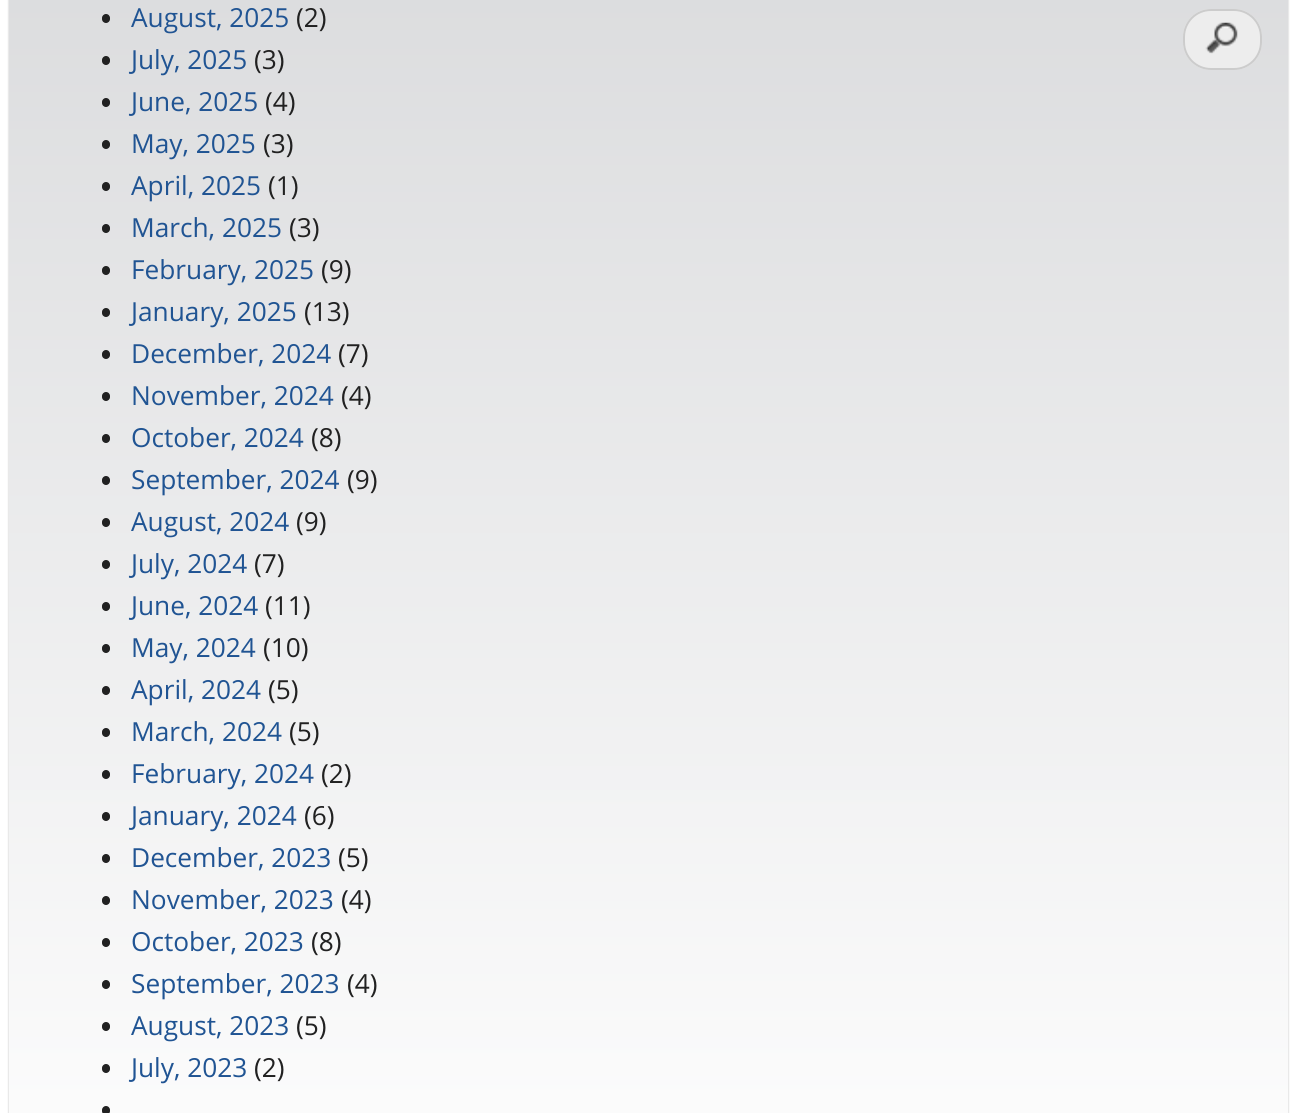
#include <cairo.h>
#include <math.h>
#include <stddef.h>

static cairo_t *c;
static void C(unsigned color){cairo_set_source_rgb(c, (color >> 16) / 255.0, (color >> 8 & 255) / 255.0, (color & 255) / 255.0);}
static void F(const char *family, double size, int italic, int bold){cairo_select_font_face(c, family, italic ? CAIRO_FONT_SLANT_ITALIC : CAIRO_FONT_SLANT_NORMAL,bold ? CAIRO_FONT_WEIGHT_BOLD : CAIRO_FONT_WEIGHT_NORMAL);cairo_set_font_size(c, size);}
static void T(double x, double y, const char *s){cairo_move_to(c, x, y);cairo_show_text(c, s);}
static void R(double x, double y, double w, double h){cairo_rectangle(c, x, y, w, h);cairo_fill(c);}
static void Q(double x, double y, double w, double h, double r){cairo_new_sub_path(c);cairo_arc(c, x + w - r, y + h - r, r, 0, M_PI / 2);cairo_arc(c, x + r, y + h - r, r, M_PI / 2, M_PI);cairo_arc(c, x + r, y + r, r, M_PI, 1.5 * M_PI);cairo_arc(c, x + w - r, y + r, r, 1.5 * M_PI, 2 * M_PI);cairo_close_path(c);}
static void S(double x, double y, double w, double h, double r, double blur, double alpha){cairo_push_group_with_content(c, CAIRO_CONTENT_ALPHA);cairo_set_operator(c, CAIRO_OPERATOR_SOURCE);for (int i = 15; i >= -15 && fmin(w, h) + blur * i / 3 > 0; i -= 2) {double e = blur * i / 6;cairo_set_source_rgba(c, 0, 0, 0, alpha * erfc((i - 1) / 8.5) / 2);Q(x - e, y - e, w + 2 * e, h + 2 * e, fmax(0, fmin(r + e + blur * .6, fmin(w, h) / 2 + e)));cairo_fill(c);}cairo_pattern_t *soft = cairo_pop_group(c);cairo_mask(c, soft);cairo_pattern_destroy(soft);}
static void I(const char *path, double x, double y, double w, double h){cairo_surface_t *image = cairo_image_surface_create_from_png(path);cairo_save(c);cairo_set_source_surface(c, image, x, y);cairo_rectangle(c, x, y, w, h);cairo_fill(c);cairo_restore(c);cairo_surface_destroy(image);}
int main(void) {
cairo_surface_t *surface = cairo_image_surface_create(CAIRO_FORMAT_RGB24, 1296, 1113);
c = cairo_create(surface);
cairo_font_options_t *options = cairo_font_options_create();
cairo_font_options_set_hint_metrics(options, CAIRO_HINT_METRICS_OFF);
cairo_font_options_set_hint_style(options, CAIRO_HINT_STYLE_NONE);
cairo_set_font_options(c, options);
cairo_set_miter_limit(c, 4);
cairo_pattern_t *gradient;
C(0xffffff);
cairo_paint(c);
C(0x000000);
S(9,-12,1279,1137,9,1,.26);
gradient = cairo_pattern_create_linear(648,-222,648,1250);
cairo_pattern_add_color_stop_rgba(gradient,0,0.839,0.843,0.851,1);
cairo_pattern_add_color_stop_rgba(gradient,1,1,1,1,1);
cairo_set_source(c,gradient);
cairo_pattern_destroy(gradient);
R(9,0,1279,1113);
C(0x212121);
Q(102,14,8,9,4);
cairo_fill(c);
F("Open Sans",26.25,0,0);
C(0x205493);
T(131,27,"August, 2025");
C(0x212121);
T(296,27,"(2)");
Q(102,56,8,9,4);
cairo_fill(c);
C(0x205493);
T(131,69,"July, 2025");
C(0x212121);
T(254,69,"(3)");
Q(102,98,8,9,4);
cairo_fill(c);
C(0x205493);
T(131,111,"June, 2025");
C(0x212121);
T(265,111,"(4)");
Q(102,140,8,9,4);
cairo_fill(c);
C(0x205493);
T(131,153,"May, 2025");
C(0x212121);
T(263,153,"(3)");
Q(102,182,8,9,4);
cairo_fill(c);
C(0x205493);
T(131,195,"April, 2025");
C(0x212121);
T(268,195,"(1)");
Q(102,224,8,9,4);
cairo_fill(c);
C(0x205493);
T(131,237,"March, 2025");
C(0x212121);
T(289,237,"(3)");
Q(102,266,8,9,4);
cairo_fill(c);
C(0x205493);
T(131,279,"February, 2025");
C(0x212121);
T(321,279,"(9)");
Q(102,308,8,9,4);
cairo_fill(c);
C(0x205493);
T(131,321,"January, 2025");
C(0x212121);
T(304,321,"(13)");
Q(102,350,8,9,4);
cairo_fill(c);
C(0x205493);
T(131,363,"December, 2024");
C(0x212121);
T(338,363,"(7)");
Q(102,392,8,9,4);
cairo_fill(c);
C(0x205493);
T(131,405,"November, 2024");
C(0x212121);
T(341,405,"(4)");
Q(102,434,8,9,4);
cairo_fill(c);
C(0x205493);
T(131,447,"October, 2024");
C(0x212121);
T(311,447,"(8)");
Q(102,476,8,9,4);
cairo_fill(c);
C(0x205493);
T(131,489,"September, 2024");
C(0x212121);
T(347,489,"(9)");
Q(102,518,8,9,4);
cairo_fill(c);
C(0x205493);
T(131,531,"August, 2024");
C(0x212121);
T(296,531,"(9)");
Q(102,560,8,9,4);
cairo_fill(c);
C(0x205493);
T(131,573,"July, 2024");
C(0x212121);
T(254,573,"(7)");
Q(102,602,8,9,4);
cairo_fill(c);
C(0x205493);
T(131,615,"June, 2024");
C(0x212121);
T(265,615,"(11)");
Q(102,644,8,9,4);
cairo_fill(c);
C(0x205493);
T(131,657,"May, 2024");
C(0x212121);
T(263,657,"(10)");
Q(102,686,8,9,4);
cairo_fill(c);
C(0x205493);
T(131,699,"April, 2024");
C(0x212121);
T(268,699,"(5)");
Q(102,728,8,9,4);
cairo_fill(c);
C(0x205493);
T(131,741,"March, 2024");
C(0x212121);
T(289,741,"(5)");
Q(102,770,8,9,4);
cairo_fill(c);
C(0x205493);
T(131,783,"February, 2024");
C(0x212121);
T(321,783,"(2)");
Q(102,812,8,9,4);
cairo_fill(c);
C(0x205493);
T(131,825,"January, 2024");
C(0x212121);
T(304,825,"(6)");
Q(102,854,8,9,4);
cairo_fill(c);
C(0x205493);
T(131,867,"December, 2023");
C(0x212121);
T(338,867,"(5)");
Q(102,896,8,9,4);
cairo_fill(c);
C(0x205493);
T(131,909,"November, 2023");
C(0x212121);
T(341,909,"(4)");
Q(102,938,8,9,4);
cairo_fill(c);
C(0x205493);
T(131,951,"October, 2023");
C(0x212121);
T(311,951,"(8)");
Q(102,980,8,9,4);
cairo_fill(c);
C(0x205493);
T(131,993,"September, 2023");
C(0x212121);
T(347,993,"(4)");
Q(102,1022,8,9,4);
cairo_fill(c);
C(0x205493);
T(131,1035,"August, 2023");
C(0x212121);
T(296,1035,"(5)");
Q(102,1064,8,9,4);
cairo_fill(c);
C(0x205493);
T(131,1077,"July, 2023");
C(0x212121);
T(254,1077,"(2)");
Q(102,1106,8,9,4);
cairo_fill(c);
C(0xededed);
Q(1183,9,79,61,28);
cairo_fill(c);
I("1.png",1205,22,33,32);
Q(1184,10,77,59,27);
C(0xcccccc);
cairo_stroke(c);
cairo_surface_write_to_png(surface, "o.png");
cairo_font_options_destroy(options);
cairo_destroy(c);
cairo_surface_destroy(surface);
return 0;
}
